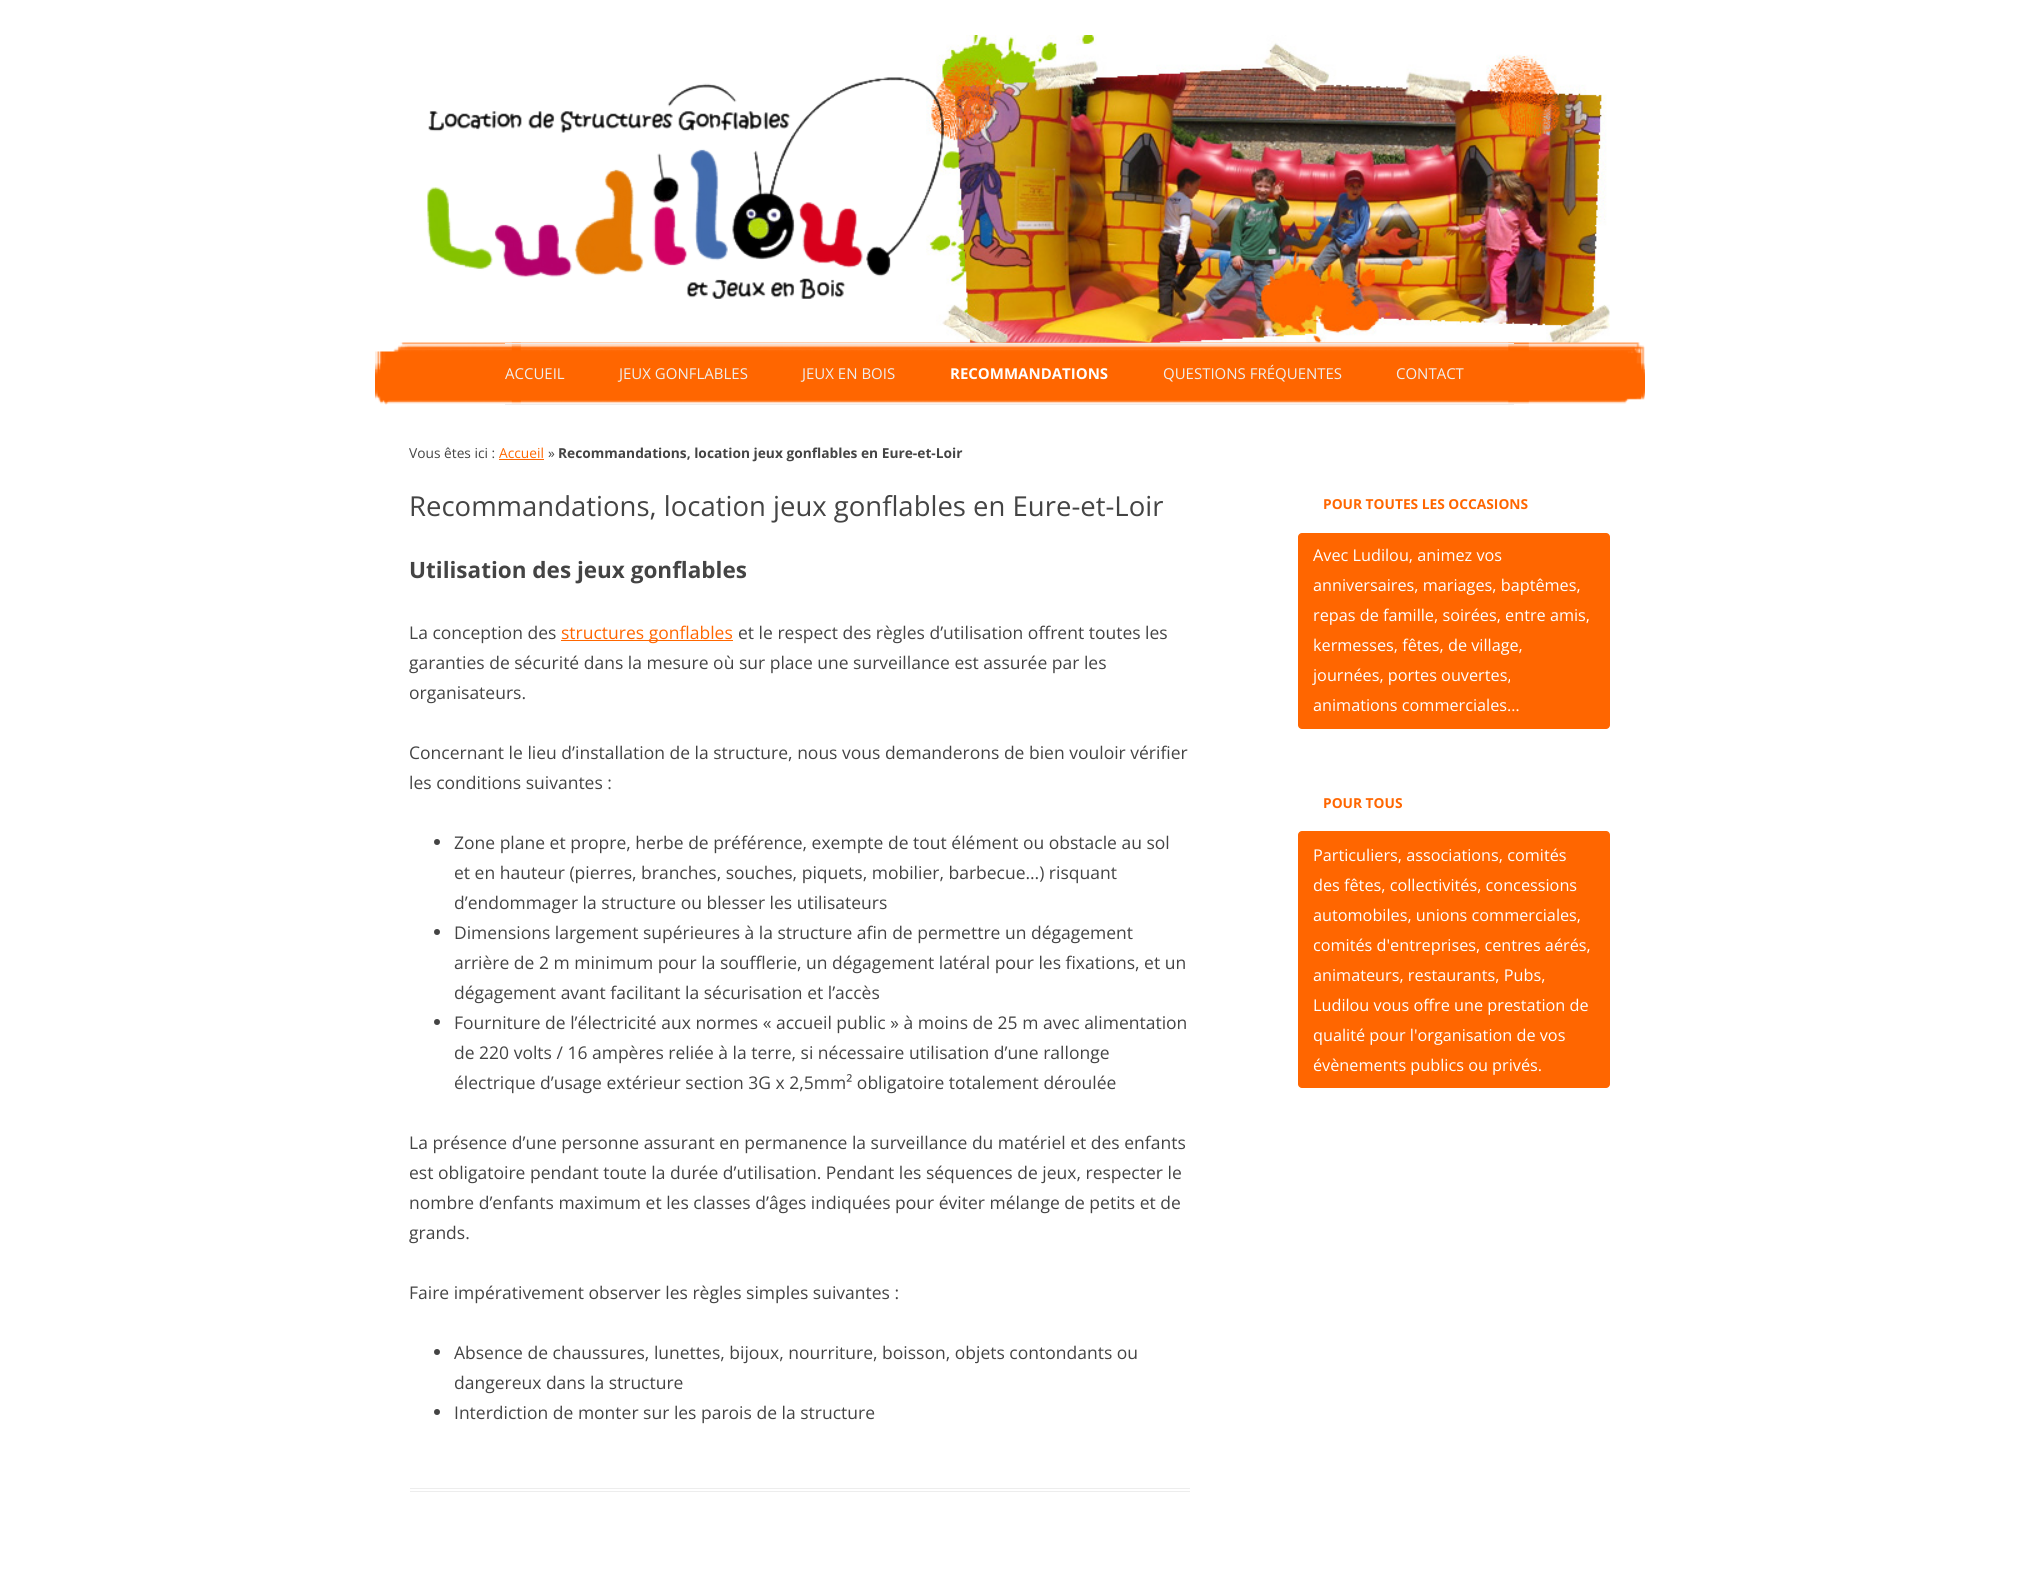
#include <cairo.h>
#include <math.h>
#include <stddef.h>

static cairo_t *c;
static void C(unsigned color){cairo_set_source_rgb(c, (color >> 16) / 255.0, (color >> 8 & 255) / 255.0, (color & 255) / 255.0);}
static void F(const char *family, double size, int italic, int bold){cairo_select_font_face(c, family, italic ? CAIRO_FONT_SLANT_ITALIC : CAIRO_FONT_SLANT_NORMAL,bold ? CAIRO_FONT_WEIGHT_BOLD : CAIRO_FONT_WEIGHT_NORMAL);cairo_set_font_size(c, size);}
static void T(double x, double y, const char *s){cairo_move_to(c, x, y);cairo_show_text(c, s);}
static void R(double x, double y, double w, double h){cairo_rectangle(c, x, y, w, h);cairo_fill(c);}
static void Q(double x, double y, double w, double h, double r){cairo_new_sub_path(c);cairo_arc(c, x + w - r, y + h - r, r, 0, M_PI / 2);cairo_arc(c, x + r, y + h - r, r, M_PI / 2, M_PI);cairo_arc(c, x + r, y + r, r, M_PI, 1.5 * M_PI);cairo_arc(c, x + w - r, y + r, r, 1.5 * M_PI, 2 * M_PI);cairo_close_path(c);}
static void I(const char *path, double x, double y, double w, double h){cairo_surface_t *image = cairo_image_surface_create_from_png(path);cairo_save(c);cairo_set_source_surface(c, image, x, y);cairo_rectangle(c, x, y, w, h);cairo_fill(c);cairo_restore(c);cairo_surface_destroy(image);}
int main(void) {
cairo_surface_t *surface = cairo_image_surface_create(CAIRO_FORMAT_RGB24, 2018, 1574);
c = cairo_create(surface);
cairo_font_options_t *options = cairo_font_options_create();
cairo_font_options_set_hint_metrics(options, CAIRO_HINT_METRICS_OFF);
cairo_font_options_set_hint_style(options, CAIRO_HINT_STYLE_NONE);
cairo_set_font_options(c, options);
cairo_set_miter_limit(c, 4);
C(0xffffff);
cairo_paint(c);
I("1.png",926,35,684,308);
I("2.png",427,77,517,222);
I("3.png",375,342,1270,63);
C(0xededed);
R(505,343,1009,1);
R(505,404,1009,1);
F("Open Sans",15,0,0);
C(0xefefef);
T(505,379,"ACCUEIL");
T(619,379,"JEUX GONFLABLES");
T(802,379,"JEUX EN BOIS");
F("Open Sans",15,0,1);
C(0xffffff);
T(950,379,"RECOMMANDATIONS");
F("Open Sans",15,0,0);
C(0xefefef);
T(1163,379,"QUESTIONS FRÉQUENTES");
T(1396,379,"CONTACT");
F("Open Sans",13.75,0,0);
C(0x444444);
T(409,458,"Vous êtes ici :");
C(0xff6600);
T(499,458,"Accueil");
R(499,459,45,1);
C(0x444444);
T(548,458,"»");
F("Open Sans",13.75,0,1);
T(558,458,"Recommandations, location jeux gonflables en Eure-et-Loir");
C(0xededed);
R(410,1488,780,1);
R(410,1491,780,1);
F("Open Sans",27.5,0,0);
C(0x444444);
T(409,516,"Recommandations, location jeux gonflables en Eure-et-Loir");
F("Open Sans",22.5,0,1);
T(409,578,"Utilisation des jeux gonflables");
F("Open Sans",17.5,0,0);
T(409,639,"La conception des");
C(0xff6600);
R(561,640,172,1);
T(561,639,"structures gonflables");
C(0x444444);
T(738,639,"et le respect des règles d’utilisation offrent toutes les");
T(409,669,"garanties de sécurité dans la mesure où sur place une surveillance est assurée par les");
T(409,699,"organisateurs.");
T(409,759,"Concernant le lieu d’installation de la structure, nous vous demanderons de bien vouloir vérifier");
T(409,789,"les conditions suivantes :");
cairo_new_path(c);
cairo_arc(c,437,842,3,0,2 * M_PI);
cairo_fill(c);
T(454,849,"Zone plane et propre, herbe de préférence, exempte de tout élément ou obstacle au sol");
T(454,879,"et en hauteur (pierres, branches, souches, piquets, mobilier, barbecue…) risquant");
T(454,909,"d’endommager la structure ou blesser les utilisateurs");
cairo_new_path(c);
cairo_arc(c,437,932,3,0,2 * M_PI);
cairo_fill(c);
T(454,939,"Dimensions largement supérieures à la structure afin de permettre un dégagement");
T(454,969,"arrière de 2 m minimum pour la soufflerie, un dégagement latéral pour les fixations, et un");
T(454,999,"dégagement avant facilitant la sécurisation et l’accès");
cairo_new_path(c);
cairo_arc(c,437,1022,3,0,2 * M_PI);
cairo_fill(c);
T(454,1029,"Fourniture de l’électricité aux normes « accueil public » à moins de 25 m avec alimentation");
T(454,1059,"de 220 volts / 16 ampères reliée à la terre, si nécessaire utilisation d’une rallonge");
T(454,1089,"électrique d’usage extérieur section 3G x 2,5mm² obligatoire totalement déroulée");
T(409,1149,"La présence d’une personne assurant en permanence la surveillance du matériel et des enfants");
T(409,1179,"est obligatoire pendant toute la durée d’utilisation. Pendant les séquences de jeux, respecter le");
T(409,1209,"nombre d’enfants maximum et les classes d’âges indiquées pour éviter mélange de petits et de");
T(409,1239,"grands.");
T(409,1299,"Faire impérativement observer les règles simples suivantes :");
cairo_new_path(c);
cairo_arc(c,437,1352,3,0,2 * M_PI);
cairo_fill(c);
T(454,1359,"Absence de chaussures, lunettes, bijoux, nourriture, boisson, objets contondants ou");
T(454,1389,"dangereux dans la structure");
cairo_new_path(c);
cairo_arc(c,437,1412,3,0,2 * M_PI);
cairo_fill(c);
T(454,1419,"Interdiction de monter sur les parois de la structure");
F("Open Sans",13.75,0,1);
C(0xff6600);
T(1323,509,"POUR TOUTES LES OCCASIONS");
Q(1298,533,312,196,4);
cairo_fill(c);
F("Open Sans",16.25,0,0);
C(0xffffff);
T(1313,561,"Avec Ludilou, animez vos");
T(1313,591,"anniversaires, mariages, baptêmes,");
T(1313,621,"repas de famille, soirées, entre amis,");
T(1313,651,"kermesses, fêtes, de village,");
T(1313,681,"journées, portes ouvertes,");
T(1313,711,"animations commerciales…");
F("Open Sans",13.75,0,1);
C(0xff6600);
T(1323,808,"POUR TOUS");
Q(1298,831,312,257,4);
cairo_fill(c);
F("Open Sans",16.25,0,0);
C(0xffffff);
T(1313,861,"Particuliers, associations, comités");
T(1313,891,"des fêtes, collectivités, concessions");
T(1313,921,"automobiles, unions commerciales,");
T(1313,951,"comités d'entreprises, centres aérés,");
T(1313,981,"animateurs, restaurants, Pubs,");
T(1313,1011,"Ludilou vous offre une prestation de");
T(1313,1041,"qualité pour l'organisation de vos");
T(1313,1071,"évènements publics ou privés.");
cairo_surface_write_to_png(surface, "o.png");
cairo_font_options_destroy(options);
cairo_destroy(c);
cairo_surface_destroy(surface);
return 0;
}
